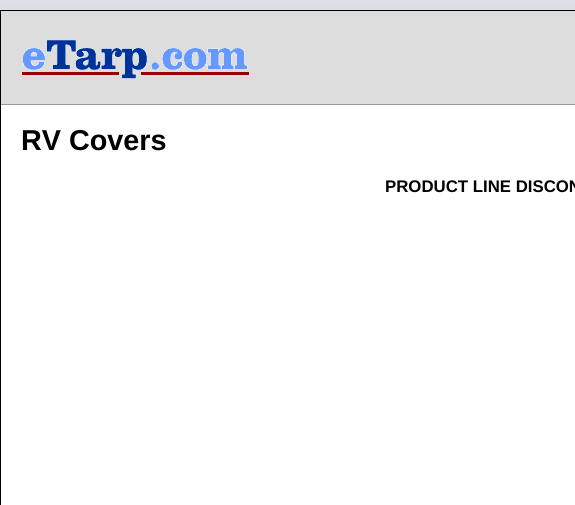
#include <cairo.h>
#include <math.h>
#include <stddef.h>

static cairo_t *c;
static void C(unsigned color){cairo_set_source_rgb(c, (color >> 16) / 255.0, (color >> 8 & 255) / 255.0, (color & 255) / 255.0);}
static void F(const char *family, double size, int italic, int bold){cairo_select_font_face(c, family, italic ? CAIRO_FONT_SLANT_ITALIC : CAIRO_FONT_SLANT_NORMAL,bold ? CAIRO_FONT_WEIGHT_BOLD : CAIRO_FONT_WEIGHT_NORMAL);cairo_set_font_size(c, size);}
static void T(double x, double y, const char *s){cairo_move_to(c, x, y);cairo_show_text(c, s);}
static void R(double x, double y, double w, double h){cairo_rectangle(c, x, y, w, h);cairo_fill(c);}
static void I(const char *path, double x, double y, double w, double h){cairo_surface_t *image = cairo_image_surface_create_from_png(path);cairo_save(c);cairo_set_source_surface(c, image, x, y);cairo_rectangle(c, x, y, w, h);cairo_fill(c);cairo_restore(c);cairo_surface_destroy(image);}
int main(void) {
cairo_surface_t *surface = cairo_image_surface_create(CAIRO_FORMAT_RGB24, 575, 505);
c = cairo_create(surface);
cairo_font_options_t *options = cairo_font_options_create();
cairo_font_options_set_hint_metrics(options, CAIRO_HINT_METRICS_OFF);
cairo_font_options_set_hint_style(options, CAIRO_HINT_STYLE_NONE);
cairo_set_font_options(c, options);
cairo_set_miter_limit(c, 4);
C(0xffffff);
cairo_paint(c);
I("1.png",0,0,575,10);
cairo_rectangle(c,.5,10.5,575,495);
C(0x000000);
cairo_set_line_width(c,1);
cairo_stroke(c);
C(0xdddddd);
R(1,11,574,93);
C(0x999999);
R(1,104,574,1);
I("2.png",22,40,227,39);
F("Liberation Sans",28.75,0,1);
C(0x000000);
T(21,150,"RV Covers");
F("Liberation Sans",16.8,0,1);
T(385,192,"PRODUCT LINE DISCON");
cairo_surface_write_to_png(surface, "o.png");
cairo_font_options_destroy(options);
cairo_destroy(c);
cairo_surface_destroy(surface);
return 0;
}
